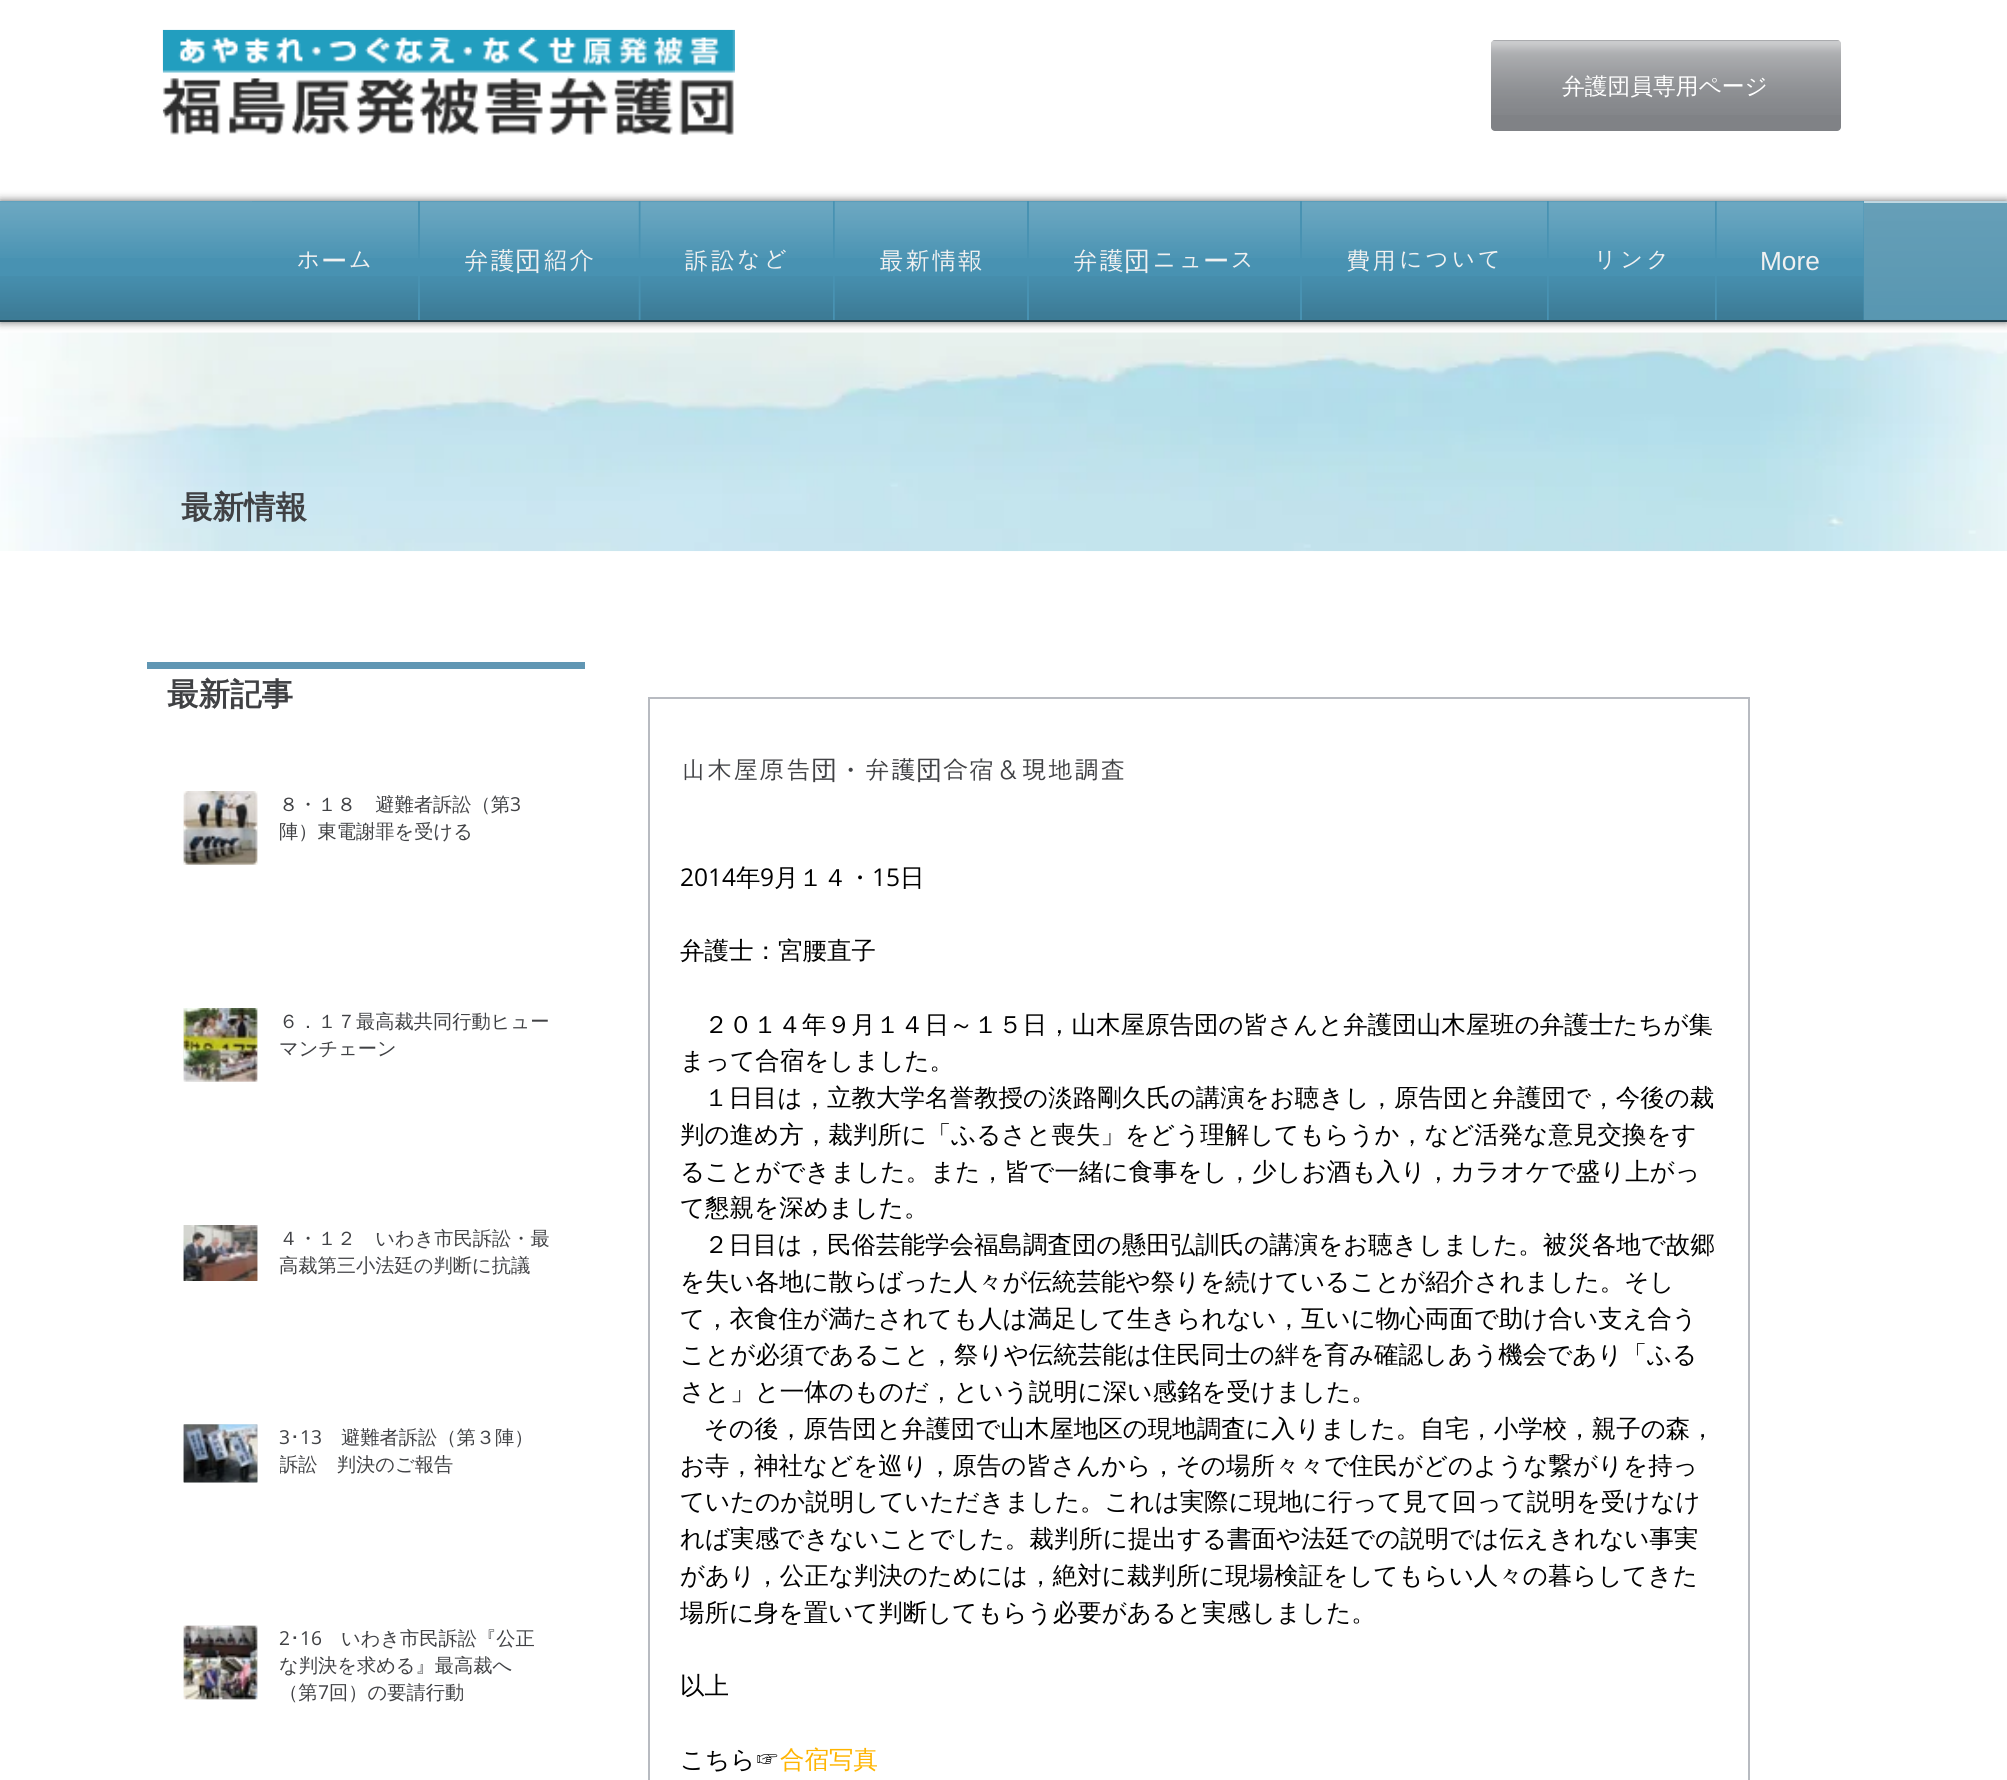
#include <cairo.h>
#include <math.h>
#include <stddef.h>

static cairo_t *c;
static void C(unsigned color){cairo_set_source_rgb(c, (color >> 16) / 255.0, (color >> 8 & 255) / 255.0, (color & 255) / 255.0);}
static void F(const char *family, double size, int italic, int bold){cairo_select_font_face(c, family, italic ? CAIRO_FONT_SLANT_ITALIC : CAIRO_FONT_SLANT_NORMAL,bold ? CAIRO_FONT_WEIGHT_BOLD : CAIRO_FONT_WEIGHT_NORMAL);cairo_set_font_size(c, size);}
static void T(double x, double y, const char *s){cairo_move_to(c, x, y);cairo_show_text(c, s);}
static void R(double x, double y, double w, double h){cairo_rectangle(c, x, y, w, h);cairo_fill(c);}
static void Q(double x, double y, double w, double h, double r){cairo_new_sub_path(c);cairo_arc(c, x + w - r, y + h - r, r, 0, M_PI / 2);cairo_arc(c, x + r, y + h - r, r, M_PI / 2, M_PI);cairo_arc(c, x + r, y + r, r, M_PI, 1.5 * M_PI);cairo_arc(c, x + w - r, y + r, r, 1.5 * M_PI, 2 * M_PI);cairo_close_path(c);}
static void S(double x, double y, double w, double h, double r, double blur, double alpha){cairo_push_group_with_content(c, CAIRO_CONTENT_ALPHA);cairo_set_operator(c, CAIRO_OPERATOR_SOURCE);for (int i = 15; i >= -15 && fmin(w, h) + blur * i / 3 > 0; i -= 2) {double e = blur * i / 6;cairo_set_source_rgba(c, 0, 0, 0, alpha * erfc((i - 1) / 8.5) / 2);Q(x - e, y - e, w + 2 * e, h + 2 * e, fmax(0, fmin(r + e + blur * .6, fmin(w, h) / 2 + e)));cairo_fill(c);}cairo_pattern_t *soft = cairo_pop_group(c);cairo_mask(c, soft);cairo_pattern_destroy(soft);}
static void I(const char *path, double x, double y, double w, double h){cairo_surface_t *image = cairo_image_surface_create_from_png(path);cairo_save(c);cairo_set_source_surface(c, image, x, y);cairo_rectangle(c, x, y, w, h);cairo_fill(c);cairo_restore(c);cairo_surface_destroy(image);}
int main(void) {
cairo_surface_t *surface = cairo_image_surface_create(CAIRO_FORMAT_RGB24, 2007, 1780);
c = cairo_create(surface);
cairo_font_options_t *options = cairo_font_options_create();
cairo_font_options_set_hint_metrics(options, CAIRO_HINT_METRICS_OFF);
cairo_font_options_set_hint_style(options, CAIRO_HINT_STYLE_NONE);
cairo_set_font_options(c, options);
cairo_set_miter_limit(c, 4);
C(0xffffff);
cairo_paint(c);
I("1.png",162,29,573,106);
C(0x808286);
Q(1491,40,350,91,4);
cairo_fill(c);
I("2.png",1491,40,350,75);
F("WenQuanYi Zen Hei Medium",22.75,0,0);
C(0xffffff);
T(1562,94,"弁護団員専用ページ");
C(0x317e9f);
R(1864,201,143,119);
cairo_save(c);
cairo_set_fill_rule(c,CAIRO_FILL_RULE_EVEN_ODD);
cairo_new_path(c);
cairo_move_to(c,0,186);
cairo_line_to(c,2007,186);
cairo_line_to(c,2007,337);
cairo_line_to(c,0,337);
cairo_close_path(c);
cairo_move_to(c,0,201);
cairo_line_to(c,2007,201);
cairo_line_to(c,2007,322);
cairo_line_to(c,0,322);
cairo_close_path(c);
cairo_clip(c);
C(0x000000);
S(0,201,2007,121,0,4.5,.6);
cairo_restore(c);
I("3.png",1864,201,143,119);
C(0x233c47);
R(0,320,2007,2);
cairo_set_source_rgba(c,1,1,1,0.6);
R(1864,201,143,2);
C(0x4892b2);
R(0,201,1864,119);
I("4.png",0,201,252,57);
I("5.png",0,276,252,44);
F("Dotum",26.25,0,0);
C(0xf1f1f1);
T(295,270,"ホ");
T(347,270,"ム");
I("6.png",252,201,166,57);
I("7.png",252,276,166,44);
F("WenQuanYi Zen Hei Medium",26.25,0,0);
T(321,270,"ー");
F("Dotum",26.25,0,0);
T(463,270,"弁護");
F("WenQuanYi Zen Hei Medium",26.25,0,0);
T(515,270,"団");
F("Dotum",26.25,0,0);
T(542,270,"紹介");
I("8.png",420,201,219,57);
I("9.png",420,276,219,44);
T(683,270,"訴訟など");
I("10.png",640,201,193,57);
I("11.png",640,276,193,44);
T(878,270,"最新情報");
I("12.png",834,201,193,57);
I("13.png",834,276,193,44);
T(1072,270,"弁護");
F("WenQuanYi Zen Hei Medium",26.25,0,0);
T(1124,270,"団");
F("Dotum",26.25,0,0);
T(1151,270,"ニュ");
T(1229,270,"ス");
I("14.png",1029,201,271,57);
I("15.png",1029,276,271,44);
F("WenQuanYi Zen Hei Medium",26.25,0,0);
T(1203,270,"ー");
F("Dotum",26.25,0,0);
T(1345,270,"費用について");
I("16.png",1302,201,245,57);
I("17.png",1302,276,245,44);
T(1592,270,"リンク");
I("18.png",1548,201,167,57);
I("19.png",1548,276,167,44);
F("Liberation Sans",26.25,0,0);
T(1760,270,"More");
I("20.png",1716,201,148,57);
I("21.png",1716,276,148,44);
I("22.png",0,332,2007,220);
F("WenQuanYi Zen Hei",31.5,0,1);
C(0x404144);
T(181,518,"最新情報");
C(0x6096b3);
R(147,662,438,7);
C(0x404144);
T(167,705,"最新記事");
I("23.png",183,791,75,74);
I("24.png",183,791,75,74);
F("WenQuanYi Zen Hei Medium",19.25,0,0);
T(279,811,"８・１８　避難者訴訟（第");
F("Open Sans",19.25,0,0);
T(510,811,"3");
F("WenQuanYi Zen Hei Medium",19.25,0,0);
T(279,838,"陣）東電謝罪を受ける");
I("25.png",183,1008,75,74);
I("26.png",183,1008,75,74);
T(279,1028,"６．１７最高裁共同行動ヒュー");
T(279,1055,"マンチェーン");
I("27.png",183,1225,75,56);
I("28.png",183,1225,75,56);
T(279,1245,"４・１２　いわき市民訴訟・最");
T(279,1272,"高裁第三小法廷の判断に抗議");
I("29.png",183,1424,75,59);
I("30.png",183,1424,75,59);
F("Open Sans",19.25,0,0);
T(279,1444,"3");
F("IPAPGothic",19.25,0,0);
T(290,1444,"･");
F("Open Sans",19.25,0,0);
T(300,1444,"13");
F("WenQuanYi Zen Hei Medium",19.25,0,0);
T(341,1444,"避難者訴訟（第３陣）");
cairo_save(c);
cairo_rectangle(c,280,1423,271,54);
cairo_clip(c);
T(279,1471,"訴訟　判決のご報告");
cairo_restore(c);
I("31.png",183,1625,75,75);
I("32.png",183,1625,75,75);
F("Open Sans",19.25,0,0);
T(279,1645,"2");
F("IPAPGothic",19.25,0,0);
T(290,1645,"･");
F("Open Sans",19.25,0,0);
T(300,1645,"16");
F("WenQuanYi Zen Hei Medium",19.25,0,0);
T(341,1645,"いわき市民訴訟『公正");
T(279,1672,"な判決を求める』最高裁へ");
T(279,1699,"（第");
F("Open Sans",19.25,0,0);
T(318,1699,"7");
F("WenQuanYi Zen Hei Medium",19.25,0,0);
T(329,1699,"回）の要請行動");
cairo_rectangle(c,649,698,1100,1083);
C(0xb8bbc1);
cairo_stroke(c);
F("Dotum",26.25,0,0);
C(0x404144);
T(680,779,"山木屋原告");
F("WenQuanYi Zen Hei Medium",26.25,0,0);
T(811,779,"団・");
F("Dotum",26.25,0,0);
T(864,779,"弁護");
F("WenQuanYi Zen Hei Medium",26.25,0,0);
T(916,779,"団");
F("Dotum",26.25,0,0);
T(942,779,"合宿＆現地調査");
F("Open Sans",24.5,0,0);
C(0x000000);
T(680,886,"2014");
F("WenQuanYi Zen Hei Medium",24.5,0,0);
T(736,886,"年");
F("Open Sans",24.5,0,0);
T(760,886,"9");
F("WenQuanYi Zen Hei Medium",24.5,0,0);
T(774,886,"月１４・");
F("Open Sans",24.5,0,0);
T(872,886,"15");
F("WenQuanYi Zen Hei Medium",24.5,0,0);
T(900,886,"日");
T(680,959,"弁護士：宮腰直子");
T(704,1033,"２０１４年９月１４日～１５日，山木屋原告団の皆さんと弁護団山木屋班の弁護士たちが集");
T(680,1069,"まって合宿をしました。");
T(704,1106,"１日目は，立教大学名誉教授の淡路剛久氏の講演をお聴きし，原告団と弁護団で，今後の裁");
T(680,1143,"判の進め方，裁判所に「ふるさと喪失」をどう理解してもらうか，など活発な意見交換をす");
T(680,1180,"ることができました。また，皆で一緒に食事をし，少しお酒も入り，カラオケで盛り上がっ");
T(680,1216,"て懇親を深めました。");
T(704,1253,"２日目は，民俗芸能学会福島調査団の懸田弘訓氏の講演をお聴きしました。被災各地で故郷");
T(680,1290,"を失い各地に散らばった人々が伝統芸能や祭りを続けていることが紹介されました。そし");
T(680,1327,"て，衣食住が満たされても人は満足して生きられない，互いに物心両面で助け合い支え合う");
T(680,1363,"ことが必須であること，祭りや伝統芸能は住民同士の絆を育み確認しあう機会であり「ふる");
T(680,1400,"さと」と一体のものだ，という説明に深い感銘を受けました。");
T(704,1437,"その後，原告団と弁護団で山木屋地区の現地調査に入りました。自宅，小学校，親子の森，");
T(680,1474,"お寺，神社などを巡り，原告の皆さんから，その場所々々で住民がどのような繋がりを持っ");
T(680,1510,"ていたのか説明していただきました。これは実際に現地に行って見て回って説明を受けなけ");
T(680,1547,"れば実感できないことでした。裁判所に提出する書面や法廷での説明では伝えきれない事実");
T(680,1584,"があり，公正な判決のためには，絶対に裁判所に現場検証をしてもらい人々の暮らしてきた");
T(680,1621,"場所に身を置いて判断してもらう必要があると実感しました。");
T(680,1694,"以上");
T(680,1768,"こちら☞");
C(0xffb400);
T(780,1768,"合宿写真");
cairo_surface_write_to_png(surface, "o.png");
cairo_font_options_destroy(options);
cairo_destroy(c);
cairo_surface_destroy(surface);
return 0;
}
